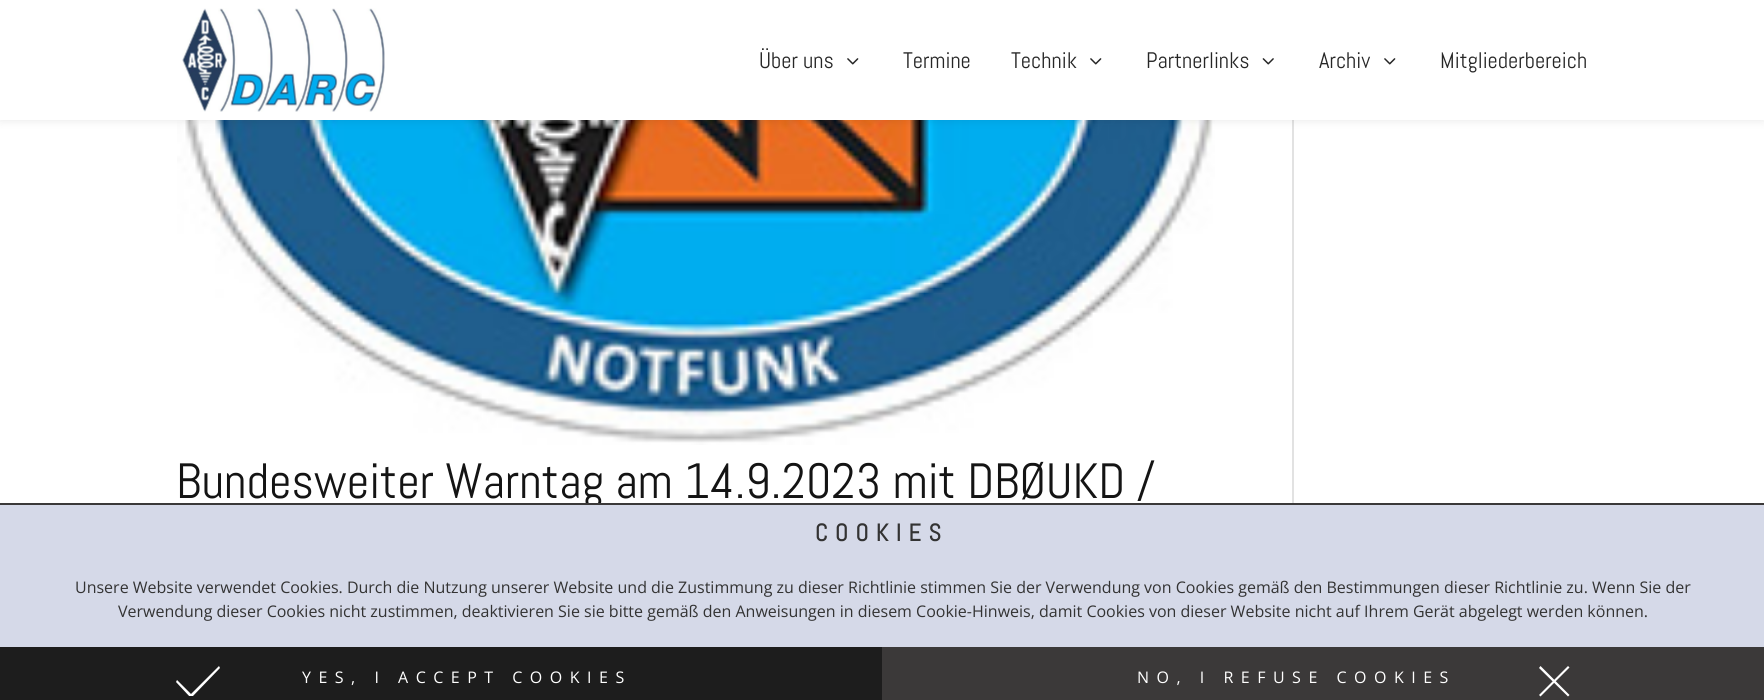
#include <cairo.h>
#include <math.h>
#include <stddef.h>

static cairo_t *c;
static void C(unsigned color){cairo_set_source_rgb(c, (color >> 16) / 255.0, (color >> 8 & 255) / 255.0, (color & 255) / 255.0);}
static void F(const char *family, double size, int italic, int bold){cairo_select_font_face(c, family, italic ? CAIRO_FONT_SLANT_ITALIC : CAIRO_FONT_SLANT_NORMAL,bold ? CAIRO_FONT_WEIGHT_BOLD : CAIRO_FONT_WEIGHT_NORMAL);cairo_set_font_size(c, size);}
static void T(double x, double y, const char *s){cairo_move_to(c, x, y);cairo_show_text(c, s);}
static void L(double x, double y, const char *s, double letter, double word){cairo_move_to(c, x, y);while (*s) {char ch[5] = {0};int n = 0;do ch[n++] = *s++; while ((*s & 0xC0) == 0x80);cairo_show_text(c, ch);cairo_rel_move_to(c, letter + word * (*ch == ' '), 0);}}
static void R(double x, double y, double w, double h){cairo_rectangle(c, x, y, w, h);cairo_fill(c);}
static void Q(double x, double y, double w, double h, double r){cairo_new_sub_path(c);cairo_arc(c, x + w - r, y + h - r, r, 0, M_PI / 2);cairo_arc(c, x + r, y + h - r, r, M_PI / 2, M_PI);cairo_arc(c, x + r, y + r, r, M_PI, 1.5 * M_PI);cairo_arc(c, x + w - r, y + r, r, 1.5 * M_PI, 2 * M_PI);cairo_close_path(c);}
static void S(double x, double y, double w, double h, double r, double blur, double alpha){cairo_push_group_with_content(c, CAIRO_CONTENT_ALPHA);cairo_set_operator(c, CAIRO_OPERATOR_SOURCE);for (int i = 15; i >= -15 && fmin(w, h) + blur * i / 3 > 0; i -= 2) {double e = blur * i / 6;cairo_set_source_rgba(c, 0, 0, 0, alpha * erfc((i - 1) / 8.5) / 2);Q(x - e, y - e, w + 2 * e, h + 2 * e, fmax(0, fmin(r + e + blur * .6, fmin(w, h) / 2 + e)));cairo_fill(c);}cairo_pattern_t *soft = cairo_pop_group(c);cairo_mask(c, soft);cairo_pattern_destroy(soft);}
static void I(const char *path, double x, double y, double w, double h){cairo_surface_t *image = cairo_image_surface_create_from_png(path);cairo_save(c);cairo_set_source_surface(c, image, x, y);cairo_rectangle(c, x, y, w, h);cairo_fill(c);cairo_restore(c);cairo_surface_destroy(image);}
int main(void) {
cairo_surface_t *surface = cairo_image_surface_create(CAIRO_FORMAT_RGB24, 1764, 700);
c = cairo_create(surface);
cairo_font_options_t *options = cairo_font_options_create();
cairo_font_options_set_hint_metrics(options, CAIRO_HINT_METRICS_OFF);
cairo_font_options_set_hint_style(options, CAIRO_HINT_STYLE_NONE);
cairo_set_font_options(c, options);
cairo_set_miter_limit(c, 4);
C(0xffffff);
cairo_paint(c);
I("4.png",177,120,1038,325);
C(0xe2e2e2);
R(1292,120,2,383);
C(0x000000);
S(0,0,1764,120,0,5,.1);
C(0xffffff);
R(0,0,1764,120);
I("1.png",182,8,203,104);
F("Abel",22.5,0,0);
C(0x262626);
T(759,68,"Über uns");
I("2.png",847,58,12,7);
T(903,68,"Termine");
T(1011,68,"Technik");
I("2.png",1090,58,12,7);
T(1146,68,"Partnerlinks");
I("3.png",1262,58,12,7);
T(1319,68,"Archiv");
I("2.png",1384,58,12,7);
T(1440,68,"Mitgliederbereich");
F("Abel",49.5,0,0);
C(0x141414);
T(176,498,"Bundesweiter Warntag am 14.9.2023 mit DBØUKD /");
C(0xd5d9e8);
R(0,505,1764,142);
C(0x3b3939);
R(0,503,1764,2);
F("Abel",24,0,1);
C(0x333333);
L(815,541,"COOKIES",7.5,0);
F("Open Sans",16,0,0);
T(75,593,"Unsere Website verwendet Cookies. Durch die Nutzung unserer Website und die Zustimmung zu dieser Richtlinie stimmen Sie der Verwendung von Cookies gemäß den Bestimmungen dieser Richtlinie zu. Wenn Sie der");
T(118,617,"Verwendung dieser Cookies nicht zustimmen, deaktivieren Sie sie bitte gemäß den Anweisungen in diesem Cookie-Hinweis, damit Cookies von dieser Website nicht auf Ihrem Gerät abgelegt werden können.");
C(0x1d1d1d);
R(0,647,882,53);
cairo_save(c);
cairo_rectangle(c,176,666,45,30);
cairo_clip(c);
C(0xffffff);
cairo_new_path(c);
cairo_move_to(c,192,697);
cairo_line_to(c,190,697);
cairo_line_to(c,176,682);
cairo_line_to(c,177,680);
cairo_line_to(c,191,694);
cairo_line_to(c,219,666);
cairo_line_to(c,220,668);
cairo_close_path(c);
cairo_fill(c);
cairo_restore(c);
C(0xffffff);
L(302,683,"YES, I ACCEPT COOKIES",7.5,0);
C(0x3b3939);
R(882,647,882,53);
C(0xffffff);
cairo_new_path(c);
cairo_move_to(c,1568,696.5);
cairo_line_to(c,1539,668);
cairo_line_to(c,1540.5,666);
cairo_line_to(c,1569.5,695);
cairo_close_path(c);
cairo_fill(c);
L(1137,683,"NO, I REFUSE COOKIES",7.5,0);
cairo_new_path(c);
cairo_move_to(c,1540.5,696.5);
cairo_line_to(c,1539,695);
cairo_line_to(c,1568,666);
cairo_line_to(c,1569.5,667.5);
cairo_close_path(c);
cairo_fill(c);
cairo_surface_write_to_png(surface, "o.png");
cairo_font_options_destroy(options);
cairo_destroy(c);
cairo_surface_destroy(surface);
return 0;
}
